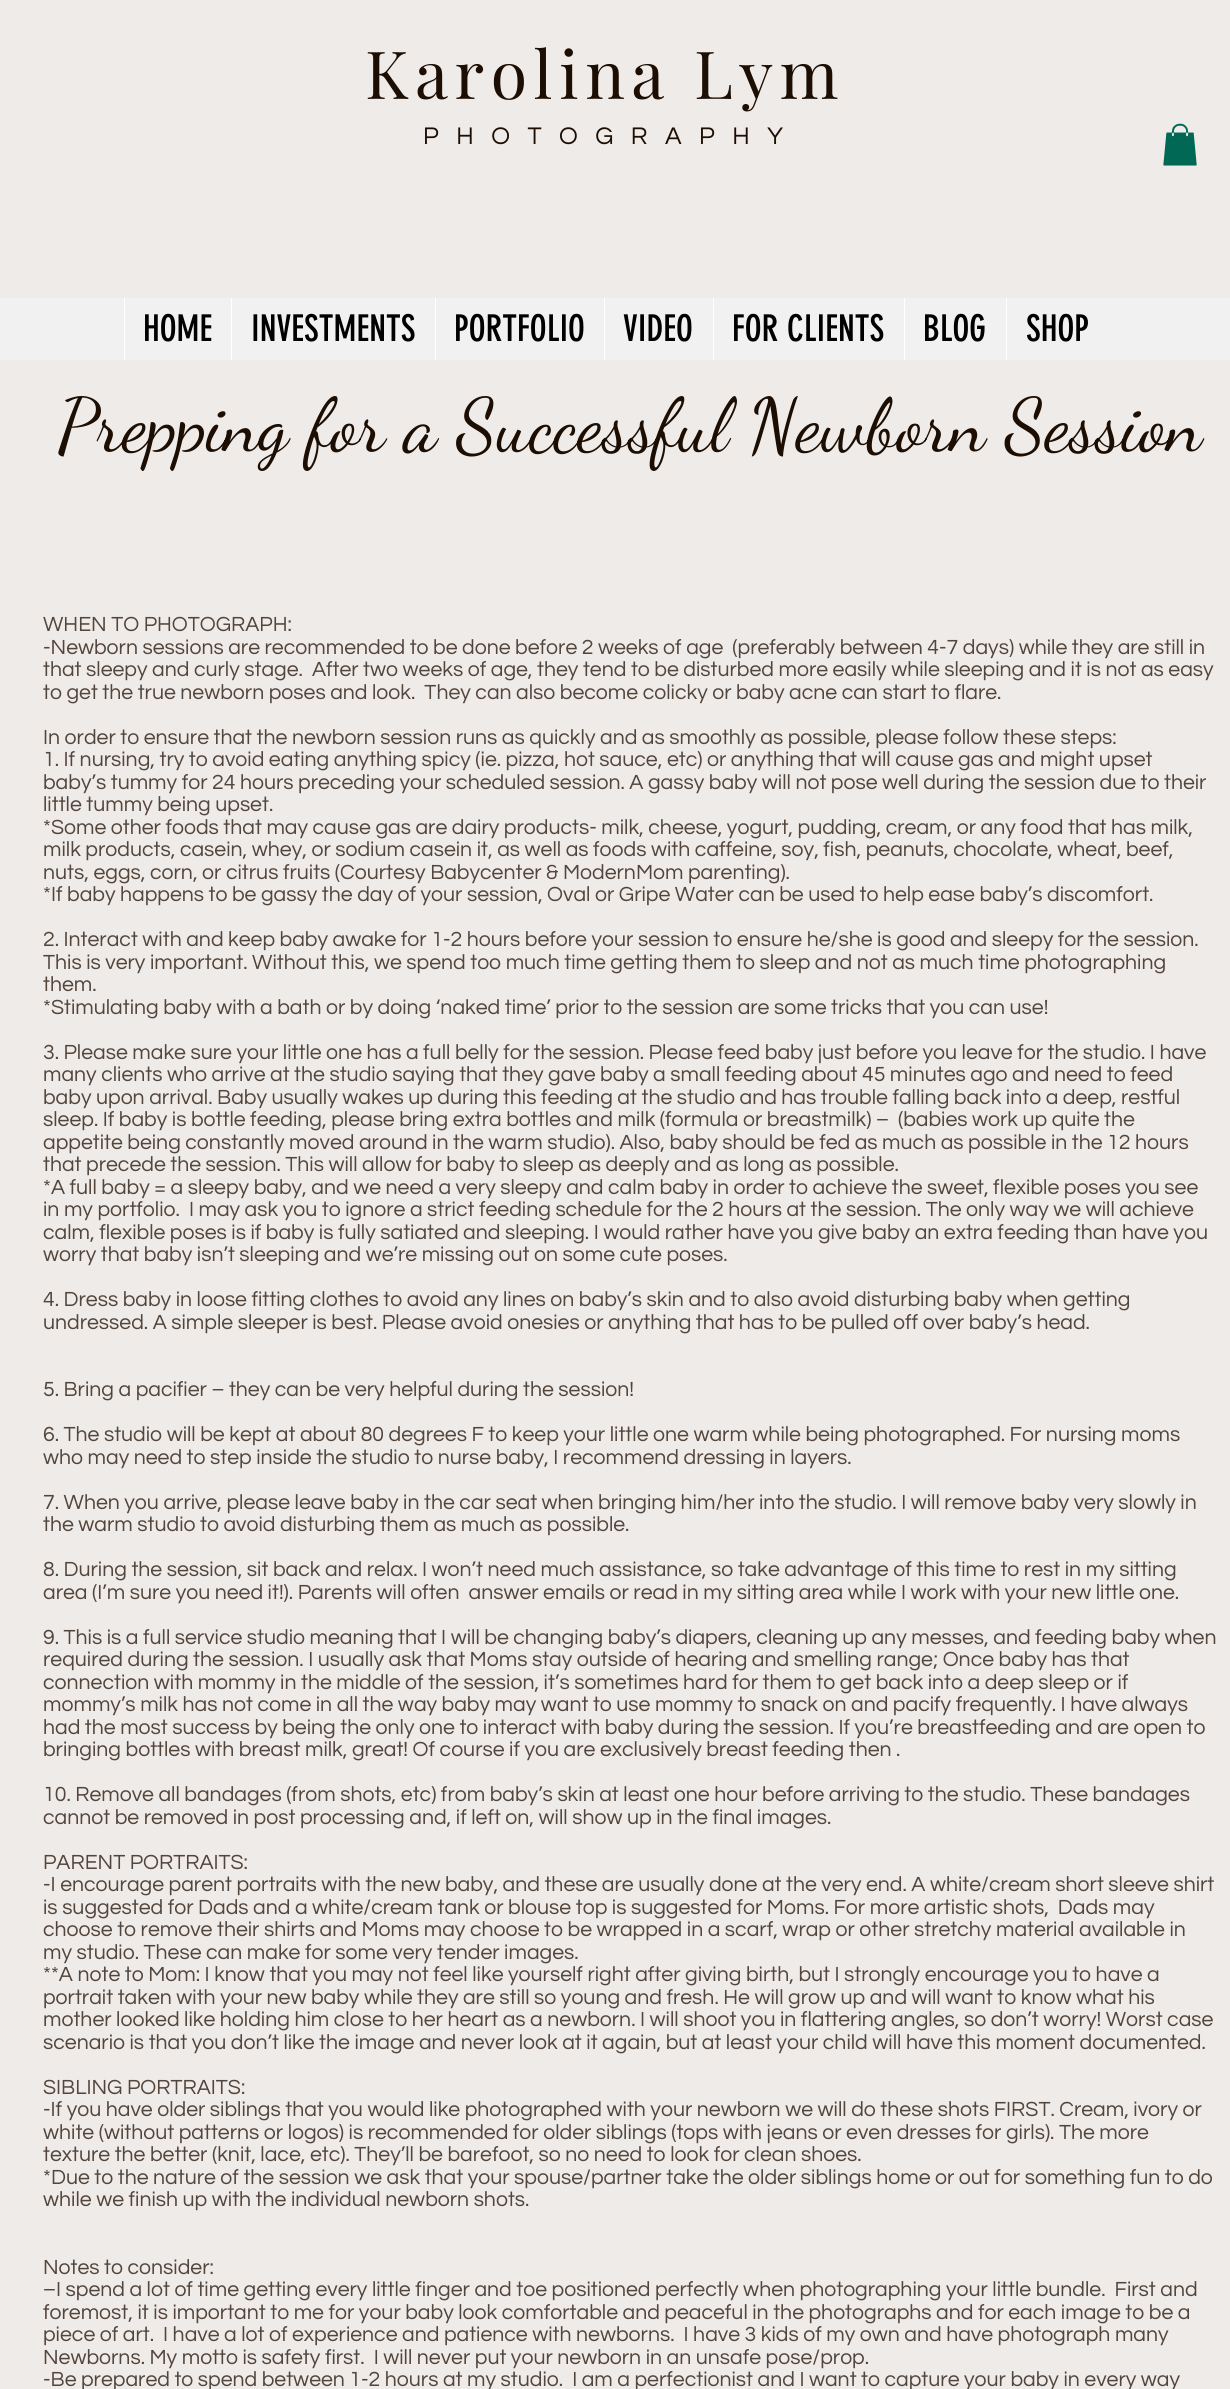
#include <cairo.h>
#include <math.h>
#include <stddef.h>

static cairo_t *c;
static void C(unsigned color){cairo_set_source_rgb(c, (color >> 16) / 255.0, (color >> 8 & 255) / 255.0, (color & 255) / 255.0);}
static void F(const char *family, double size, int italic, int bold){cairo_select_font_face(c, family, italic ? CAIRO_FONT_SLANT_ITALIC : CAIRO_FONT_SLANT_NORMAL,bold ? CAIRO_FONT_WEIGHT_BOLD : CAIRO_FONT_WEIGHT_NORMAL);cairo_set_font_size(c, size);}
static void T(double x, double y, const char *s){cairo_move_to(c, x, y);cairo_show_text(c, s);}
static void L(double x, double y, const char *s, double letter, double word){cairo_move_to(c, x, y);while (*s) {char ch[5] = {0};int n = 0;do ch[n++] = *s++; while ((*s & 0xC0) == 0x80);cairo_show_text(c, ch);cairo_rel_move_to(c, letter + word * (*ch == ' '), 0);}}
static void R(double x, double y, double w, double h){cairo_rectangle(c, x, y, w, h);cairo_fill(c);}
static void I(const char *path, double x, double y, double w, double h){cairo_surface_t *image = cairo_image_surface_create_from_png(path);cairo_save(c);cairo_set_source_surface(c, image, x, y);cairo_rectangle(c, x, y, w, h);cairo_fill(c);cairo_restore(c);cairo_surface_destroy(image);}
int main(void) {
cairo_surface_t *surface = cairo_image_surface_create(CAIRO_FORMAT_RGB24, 1230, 2389);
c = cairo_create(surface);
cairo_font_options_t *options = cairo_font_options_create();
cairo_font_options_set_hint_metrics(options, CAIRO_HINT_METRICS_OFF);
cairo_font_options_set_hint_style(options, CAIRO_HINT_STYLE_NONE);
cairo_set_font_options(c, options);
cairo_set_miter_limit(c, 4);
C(0xefebe8);
cairo_paint(c);
F("Playfair Display",66.25,0,0);
C(0x1d0e03);
L(365,99,"Karolina Lym",6.6,0);
F("Questrial",25,0,0);
L(423,144,"PHOTOGRAPHY",17.5,0);
I("1.png",1163,123,34,43);
C(0xf1f1f1);
R(0,298,1230,62);
C(0xffffff);
R(124,298,1,62);
F("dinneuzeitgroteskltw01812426",36.25,0,0);
C(0x000000);
T(143,341,"HOME");
C(0xffffff);
R(231,298,1,62);
C(0x000000);
T(251,341,"INVESTMENTS");
C(0xffffff);
R(435,298,1,62);
C(0x000000);
T(454,341,"PORTFOLIO");
C(0xffffff);
R(604,298,1,62);
C(0x000000);
T(623,341,"VIDEO");
C(0xffffff);
R(713,298,1,62);
C(0x000000);
T(732,341,"FOR CLIENTS");
C(0xffffff);
R(904,298,1,62);
C(0x000000);
T(923,341,"BLOG");
C(0xffffff);
R(1006,298,1,62);
C(0x000000);
T(1026,341,"SHOP");
F("Dancing Script",75,0,0);
C(0x1d0e03);
T(57,450,"Prepping for a Successful Newborn Session");
F("Questrial",21.25,0,0);
C(0x52453c);
T(43,631,"WHEN TO PHOTOGRAPH:");
T(43,654,"-Newborn sessions are recommended to be done before 2 weeks of age  (preferably between 4-7 days) while they are still in");
T(43,676,"that sleepy and curly stage.  After two weeks of age, they tend to be disturbed more easily while sleeping and it is not as easy");
T(43,699,"to get the true newborn poses and look.  They can also become colicky or baby acne can start to flare.");
T(43,744,"In order to ensure that the newborn session runs as quickly and as smoothly as possible, please follow these steps:");
T(43,766,"1. If nursing, try to avoid eating anything spicy (ie. pizza, hot sauce, etc) or anything that will cause gas and might upset");
T(43,789,"baby’s tummy for 24 hours preceding your scheduled session. A gassy baby will not pose well during the session due to their");
T(43,811,"little tummy being upset.");
T(43,834,"*Some other foods that may cause gas are dairy products- milk, cheese, yogurt, pudding, cream, or any food that has milk,");
T(43,856,"milk products, casein, whey, or sodium casein it, as well as foods with caffeine, soy, fish, peanuts, chocolate, wheat, beef,");
T(43,879,"nuts, eggs, corn, or citrus fruits (Courtesy Babycenter & ModernMom parenting).");
T(43,901,"*If baby happens to be gassy the day of your session, Oval or Gripe Water can be used to help ease baby’s discomfort.");
T(43,946,"2. Interact with and keep baby awake for 1-2 hours before your session to ensure he/she is good and sleepy for the session.");
T(43,969,"This is very important. Without this, we spend too much time getting them to sleep and not as much time photographing");
T(43,991,"them.");
T(43,1014,"*Stimulating baby with a bath or by doing ‘naked time’ prior to the session are some tricks that you can use!");
T(43,1059,"3. Please make sure your little one has a full belly for the session. Please feed baby just before you leave for the studio. I have");
T(43,1081,"many clients who arrive at the studio saying that they gave baby a small feeding about 45 minutes ago and need to feed");
T(43,1104,"baby upon arrival. Baby usually wakes up during this feeding at the studio and has trouble falling back into a deep, restful");
T(43,1126,"sleep. If baby is bottle feeding, please bring extra bottles and milk (formula or breastmilk) –  (babies work up quite the");
T(43,1149,"appetite being constantly moved around in the warm studio). Also, baby should be fed as much as possible in the 12 hours");
T(43,1171,"that precede the session. This will allow for baby to sleep as deeply and as long as possible.");
T(43,1194,"*A full baby = a sleepy baby, and we need a very sleepy and calm baby in order to achieve the sweet, flexible poses you see");
T(43,1216,"in my portfolio.  I may ask you to ignore a strict feeding schedule for the 2 hours at the session. The only way we will achieve");
T(43,1239,"calm, flexible poses is if baby is fully satiated and sleeping. I would rather have you give baby an extra feeding than have you");
T(43,1261,"worry that baby isn’t sleeping and we’re missing out on some cute poses.");
T(43,1306,"4. Dress baby in loose fitting clothes to avoid any lines on baby’s skin and to also avoid disturbing baby when getting");
T(43,1329,"undressed. A simple sleeper is best. Please avoid onesies or anything that has to be pulled off over baby’s head.");
T(43,1396,"5. Bring a pacifier – they can be very helpful during the session!");
T(43,1441,"6. The studio will be kept at about 80 degrees F to keep your little one warm while being photographed. For nursing moms");
T(43,1464,"who may need to step inside the studio to nurse baby, I recommend dressing in layers.");
T(43,1509,"7. When you arrive, please leave baby in the car seat when bringing him/her into the studio. I will remove baby very slowly in");
T(43,1531,"the warm studio to avoid disturbing them as much as possible.");
T(43,1576,"8. During the session, sit back and relax. I won’t need much assistance, so take advantage of this time to rest in my sitting");
T(43,1599,"area (I’m sure you need it!). Parents will often  answer emails or read in my sitting area while I work with your new little one.");
T(43,1644,"9. This is a full service studio meaning that I will be changing baby’s diapers, cleaning up any messes, and feeding baby when");
T(43,1666,"required during the session. I usually ask that Moms stay outside of hearing and smelling range; Once baby has that");
T(43,1689,"connection with mommy in the middle of the session, it’s sometimes hard for them to get back into a deep sleep or if");
T(43,1711,"mommy’s milk has not come in all the way baby may want to use mommy to snack on and pacify frequently. I have always");
T(43,1734,"had the most success by being the only one to interact with baby during the session. If you’re breastfeeding and are open to");
T(43,1756,"bringing bottles with breast milk, great! Of course if you are exclusively breast feeding then .");
T(43,1801,"10. Remove all bandages (from shots, etc) from baby’s skin at least one hour before arriving to the studio. These bandages");
T(43,1824,"cannot be removed in post processing and, if left on, will show up in the final images.");
T(43,1869,"PARENT PORTRAITS:");
T(43,1891,"-I encourage parent portraits with the new baby, and these are usually done at the very end. A white/cream short sleeve shirt");
T(43,1914,"is suggested for Dads and a white/cream tank or blouse top is suggested for Moms. For more artistic shots,  Dads may");
T(43,1936,"choose to remove their shirts and Moms may choose to be wrapped in a scarf, wrap or other stretchy material available in");
T(43,1959,"my studio. These can make for some very tender images.");
T(43,1981,"**A note to Mom: I know that you may not feel like yourself right after giving birth, but I strongly encourage you to have a");
T(43,2004,"portrait taken with your new baby while they are still so young and fresh. He will grow up and will want to know what his");
T(43,2026,"mother looked like holding him close to her heart as a newborn. I will shoot you in flattering angles, so don’t worry! Worst case");
T(43,2049,"scenario is that you don’t like the image and never look at it again, but at least your child will have this moment documented.");
T(43,2094,"SIBLING PORTRAITS:");
T(43,2116,"-If you have older siblings that you would like photographed with your newborn we will do these shots FIRST. Cream, ivory or");
T(43,2139,"white (without patterns or logos) is recommended for older siblings (tops with jeans or even dresses for girls). The more");
T(43,2161,"texture the better (knit, lace, etc). They’ll be barefoot, so no need to look for clean shoes.");
T(43,2184,"*Due to the nature of the session we ask that your spouse/partner take the older siblings home or out for something fun to do");
T(43,2206,"while we finish up with the individual newborn shots.");
T(43,2274,"Notes to consider:");
T(43,2296,"–I spend a lot of time getting every little finger and toe positioned perfectly when photographing your little bundle.  First and");
T(43,2319,"foremost, it is important to me for your baby look comfortable and peaceful in the photographs and for each image to be a");
T(43,2341,"piece of art.  I have a lot of experience and patience with newborns.  I have 3 kids of my own and have photograph many");
T(43,2364,"Newborns. My motto is safety first.  I will never put your newborn in an unsafe pose/prop.");
T(43,2386,"-Be prepared to spend between 1-2 hours at my studio.  I am a perfectionist and I want to capture your baby in every way");
cairo_surface_write_to_png(surface, "o.png");
cairo_font_options_destroy(options);
cairo_destroy(c);
cairo_surface_destroy(surface);
return 0;
}
